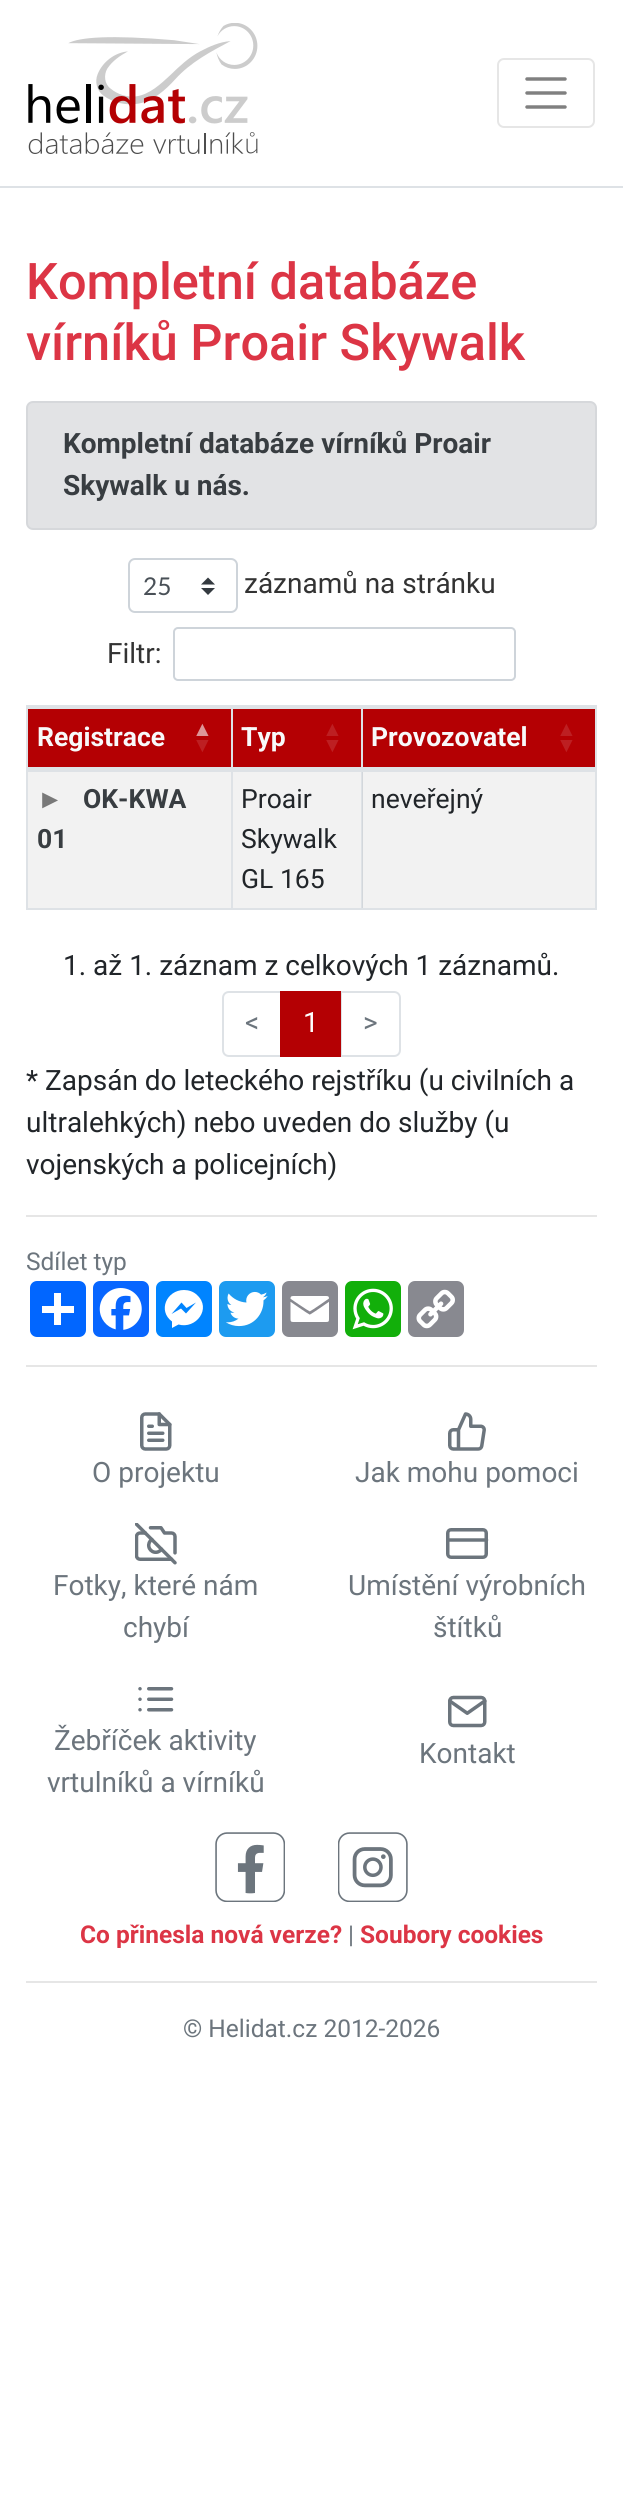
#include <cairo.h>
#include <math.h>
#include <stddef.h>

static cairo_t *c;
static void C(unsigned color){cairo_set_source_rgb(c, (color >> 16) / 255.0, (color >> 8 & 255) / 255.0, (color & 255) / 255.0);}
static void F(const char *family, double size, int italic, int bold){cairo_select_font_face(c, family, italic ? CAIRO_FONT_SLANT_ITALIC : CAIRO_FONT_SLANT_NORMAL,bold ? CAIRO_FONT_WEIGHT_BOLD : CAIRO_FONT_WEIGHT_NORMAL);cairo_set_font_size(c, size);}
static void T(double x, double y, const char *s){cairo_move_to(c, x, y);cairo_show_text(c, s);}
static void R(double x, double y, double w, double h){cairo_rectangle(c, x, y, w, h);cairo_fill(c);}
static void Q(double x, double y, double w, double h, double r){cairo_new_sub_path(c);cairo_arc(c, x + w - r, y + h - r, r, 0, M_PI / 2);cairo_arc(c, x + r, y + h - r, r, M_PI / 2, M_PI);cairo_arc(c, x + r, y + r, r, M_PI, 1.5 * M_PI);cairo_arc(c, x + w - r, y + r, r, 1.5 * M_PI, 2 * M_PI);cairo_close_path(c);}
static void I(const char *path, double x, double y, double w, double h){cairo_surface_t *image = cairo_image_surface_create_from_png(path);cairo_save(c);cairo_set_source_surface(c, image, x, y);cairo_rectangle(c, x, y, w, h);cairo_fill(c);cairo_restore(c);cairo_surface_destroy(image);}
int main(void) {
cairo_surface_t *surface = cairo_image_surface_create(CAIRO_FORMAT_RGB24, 623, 2493);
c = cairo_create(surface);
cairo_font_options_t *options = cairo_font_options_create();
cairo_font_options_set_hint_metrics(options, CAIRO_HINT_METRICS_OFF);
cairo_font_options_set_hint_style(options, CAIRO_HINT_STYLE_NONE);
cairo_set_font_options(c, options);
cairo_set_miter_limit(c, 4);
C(0xffffff);
cairo_paint(c);
C(0xf2f2f2);
R(363,772,232,136);
C(0xdee2e6);
R(0,186,623,2);
I("1.png",28,23,230,131);
Q(498,59,96,68,6);
C(0xe6e6e6);
cairo_stroke(c);
cairo_new_path(c);
cairo_move_to(c,527,79);
cairo_line_to(c,565,79);
cairo_move_to(c,527,93);
cairo_line_to(c,565,93);
cairo_move_to(c,527,107);
cairo_line_to(c,565,107);
C(0x808080);
cairo_set_line_width(c,3.5);
cairo_set_line_cap(c,CAIRO_LINE_CAP_ROUND);
cairo_stroke(c);
F("Roboto Medium",50.5,0,0);
C(0xdc3545);
T(26,299,"Kompletní databáze");
T(26,360,"vírníků Proair Skywalk");
C(0xe2e3e5);
Q(27,402,569,127,6);
cairo_fill_preserve(c);
C(0xd6d8db);
cairo_set_line_width(c,2);
cairo_set_line_cap(c,CAIRO_LINE_CAP_BUTT);
cairo_stroke(c);
F("Roboto",28,0,1);
C(0x383d41);
T(63,453,"Kompletní databáze vírníků Proair");
T(63,495,"Skywalk u nás.");
C(0x343a40);
cairo_new_path(c);
cairo_move_to(c,208,577.5);
cairo_line_to(c,201,584.5);
cairo_line_to(c,215,584.5);
cairo_close_path(c);
cairo_move_to(c,208,595);
cairo_line_to(c,201,588);
cairo_line_to(c,215,588);
cairo_close_path(c);
cairo_fill(c);
Q(129,559,108,53,6);
C(0xced4da);
cairo_stroke(c);
F("Lato",24.5,0,0);
C(0x495057);
T(143,595,"25");
F("Roboto",28,0,0);
C(0x333333);
T(244,593,"záznamů na stránku");
T(107,663,"Filtr:");
Q(174,628,341,52,4);
C(0xced4da);
cairo_stroke(c);
C(0xdee2e6);
R(26,705,571,2);
R(26,908,571,2);
R(26,705,2,205);
C(0xb40003);
R(28,709,567,58);
C(0xdee2e6);
R(28,707,334,2);
R(231,707,2,63);
R(28,771,569,1);
R(231,770,2,138);
R(28,767,205,4);
F("Roboto",26.5,0,1);
C(0xf8f9fa);
T(37,746,"Registrace");
F("Liberation Sans",21,0,1);
C(0xdd9597);
T(192,736,"▲");
C(0xbd1f22);
T(192,752,"▼");
C(0xdee2e6);
R(361,707,2,63);
R(361,770,1,138);
R(233,767,129,4);
F("Roboto",26.5,0,1);
C(0xf8f9fa);
T(241,746,"Typ");
F("Liberation Sans",21,0,1);
C(0xbd1f22);
T(322,736,"▲");
T(322,752,"▼");
C(0xdee2e6);
R(362,707,235,2);
R(595,707,2,63);
R(595,770,2,138);
R(362,767,235,4);
F("Roboto",26.5,0,1);
C(0xf8f9fa);
T(371,746,"Provozovatel");
F("Liberation Sans",21,0,1);
C(0xbd1f22);
T(556,736,"▲");
T(556,752,"▼");
C(0xf2f2f2);
R(28,772,203,136);
F("Liberation Sans",26.5,0,0);
C(0x797979);
T(37,808,"►");
F("Roboto",26.5,0,1);
C(0x383d41);
T(83,808,"OK-KWA");
T(37,848,"01");
C(0xf2f2f2);
R(233,772,128,136);
C(0xd3d7db);
R(362,772,1,136);
F("Roboto",26.5,0,0);
C(0x212529);
T(241,808,"Proair");
T(241,848,"Skywalk");
T(241,888,"GL 165");
T(371,808,"neveřejný");
F("Roboto",28,0,0);
T(63,975,"1. až 1. záznam z celkových 1 záznamů.");
cairo_new_path(c);
cairo_move_to(c,229,992);
cairo_line_to(c,281,992);
cairo_line_to(c,281,1056);
cairo_line_to(c,229,1056);
cairo_curve_to(c,225.5,1056,223,1053.5,223,1050);
cairo_line_to(c,223,998);
cairo_curve_to(c,223,994.5,225.5,992,229,992);
cairo_close_path(c);
C(0xdee2e6);
cairo_stroke(c);
C(0x6c757d);
T(245,1032,"<");
cairo_new_path(c);
cairo_move_to(c,341,992);
cairo_line_to(c,394,992);
cairo_curve_to(c,397.5,992,400,994.5,400,998);
cairo_line_to(c,400,1050);
cairo_curve_to(c,400,1053.5,397.5,1056,394,1056);
cairo_line_to(c,341,1056);
cairo_close_path(c);
C(0xdee2e6);
cairo_stroke(c);
C(0xb40003);
R(280,991,61,66);
C(0xffffff);
T(303,1032,"1");
C(0x6c757d);
T(363,1032,">");
C(0x212529);
T(26,1090,"* Zapsán do leteckého rejstříku (u civilních a");
T(26,1132,"ultralehkých) nebo uveden do služby (u");
T(26,1174,"vojenských a policejních)");
C(0xe6e6e6);
R(26,1215,571,2);
F("Roboto",24.5,0,0);
C(0x6c757d);
T(26,1270,"Sdílet typ");
C(0x0166ff);
Q(30,1281,56,56,7);
cairo_fill(c);
C(0xffffff);
R(54,1293,7,32);
R(42,1306,32,7);
C(0x0866ff);
Q(93,1281,56,56,7);
cairo_fill(c);
I("2.png",99,1288,43,42);
C(0x0084ff);
Q(156,1281,56,56,7);
cairo_fill(c);
C(0xffffff);
cairo_new_path(c);
cairo_move_to(c,184,1290);
cairo_curve_to(c,166.5,1290,157.5,1311,172,1321.5);
cairo_line_to(c,172,1328);
cairo_line_to(c,178.5,1324.5);
cairo_curve_to(c,196,1329.5,212,1308.5,197,1295);
cairo_curve_to(c,193.5,1291.5,188.5,1290,184,1290);
cairo_move_to(c,186,1313.5);
cairo_line_to(c,181,1308.5);
cairo_line_to(c,171.5,1314);
cairo_line_to(c,181.5,1302.5);
cairo_line_to(c,186.5,1308);
cairo_line_to(c,196,1302.5);
cairo_close_path(c);
cairo_fill(c);
C(0x1d9bf0);
Q(219,1281,56,56,7);
cairo_fill(c);
I("3.png",226,1291,42,36);
C(0x888990);
Q(282,1281,56,56,7);
cairo_fill(c);
I("4.png",290,1296,39,26);
C(0x12af0a);
Q(345,1281,56,56,7);
cairo_fill(c);
I("5.png",352,1288,41,42);
C(0x888990);
Q(408,1281,56,56,7);
cairo_fill(c);
I("6.png",416,1289,39,40);
C(0xe6e6e6);
R(26,1365,571,2);
I("7.png",140,1412,32,39);
F("Roboto",28,0,0);
C(0x6c757d);
T(92,1482,"O projektu");
I("8.png",448,1412,38,39);
T(355,1482,"Jak mohu pomoci");
I("9.png",135,1523,42,42);
T(53,1595,"Fotky, které nám");
T(123,1637,"chybí");
T(348,1595,"Umístění výrobních");
Q(447.75,1529.75,38.5,27.5,3.25);
cairo_set_line_width(c,3.5);
cairo_stroke(c);
cairo_new_path(c);
cairo_move_to(c,448,1540);
cairo_line_to(c,486.5,1540);
cairo_set_line_cap(c,CAIRO_LINE_CAP_ROUND);
cairo_set_line_join(c,CAIRO_LINE_JOIN_ROUND);
cairo_stroke(c);
T(433,1637,"štítků");
I("10.png",138,1687,36,25);
T(54,1750,"Žebříček aktivity");
T(47,1792,"vrtulníků a vírníků");
I("11.png",448,1695,39,33);
T(419,1763,"Kontakt");
I("12.png",215,1832,70,70);
I("13.png",338,1832,70,70);
F("Roboto",24.5,0,1);
C(0xdc3545);
T(80,1943,"Co přinesla nová verze?");
F("Roboto",24.5,0,0);
C(0x6c757d);
T(348,1943,"|");
F("Roboto",24.5,0,1);
C(0xdc3545);
T(360,1943,"Soubory cookies");
C(0xe6e6e6);
R(26,1981,571,2);
F("Roboto",24.5,0,0);
C(0x6c757d);
T(183,2037,"© Helidat.cz 2012-2026");
cairo_surface_write_to_png(surface, "o.png");
cairo_font_options_destroy(options);
cairo_destroy(c);
cairo_surface_destroy(surface);
return 0;
}
